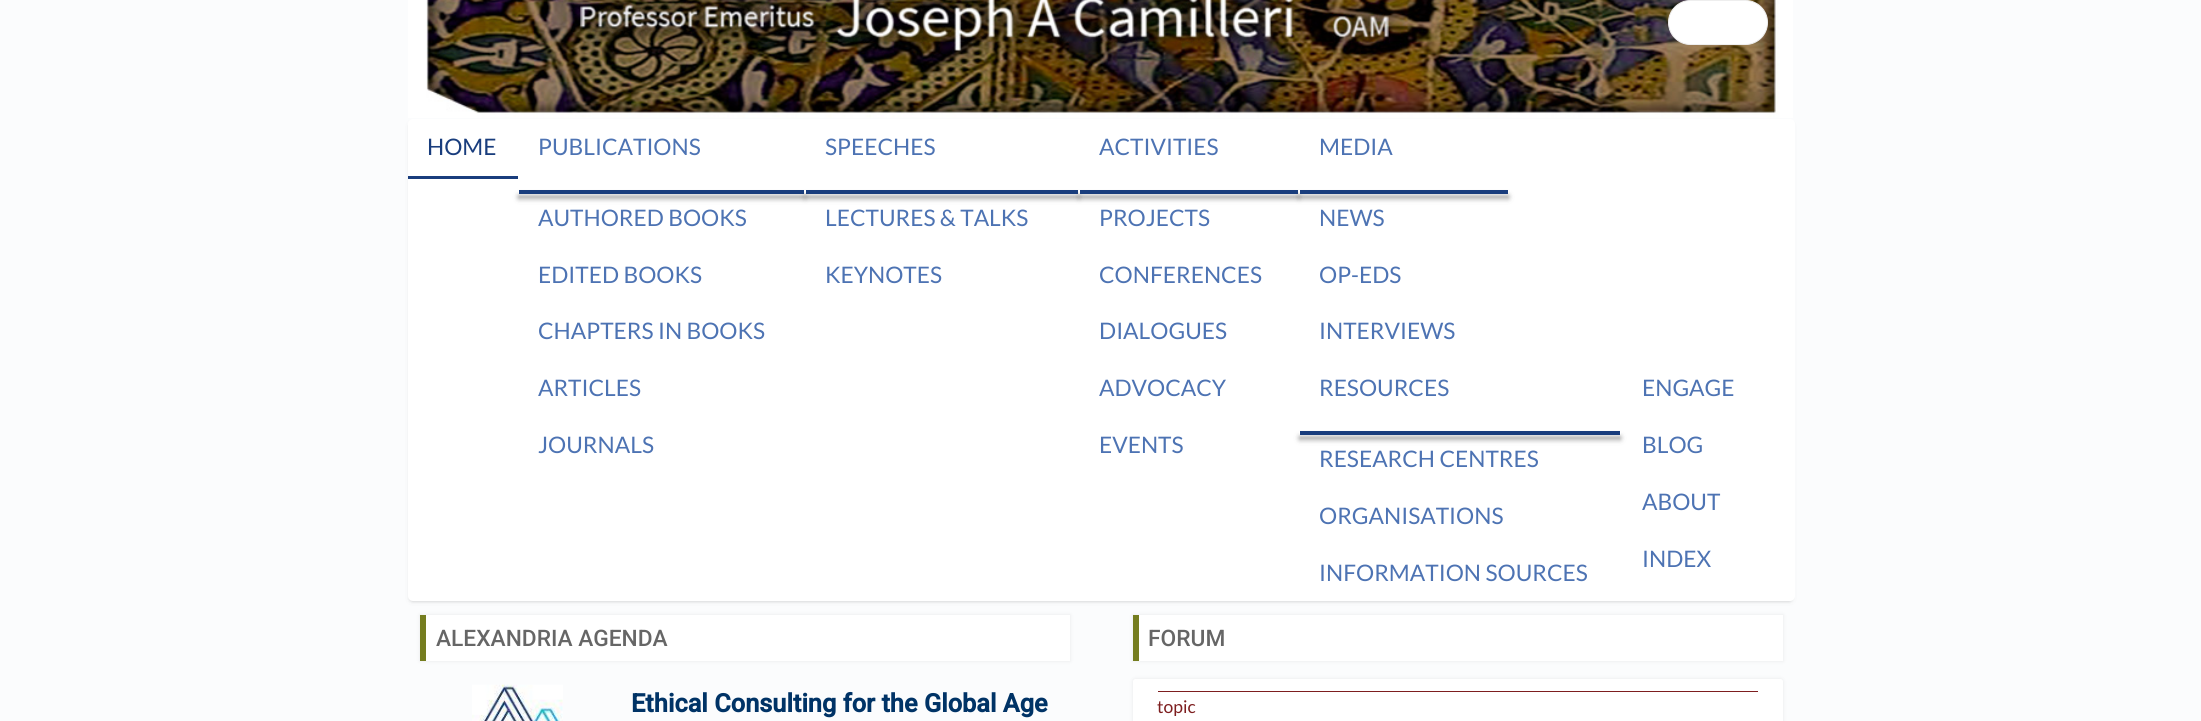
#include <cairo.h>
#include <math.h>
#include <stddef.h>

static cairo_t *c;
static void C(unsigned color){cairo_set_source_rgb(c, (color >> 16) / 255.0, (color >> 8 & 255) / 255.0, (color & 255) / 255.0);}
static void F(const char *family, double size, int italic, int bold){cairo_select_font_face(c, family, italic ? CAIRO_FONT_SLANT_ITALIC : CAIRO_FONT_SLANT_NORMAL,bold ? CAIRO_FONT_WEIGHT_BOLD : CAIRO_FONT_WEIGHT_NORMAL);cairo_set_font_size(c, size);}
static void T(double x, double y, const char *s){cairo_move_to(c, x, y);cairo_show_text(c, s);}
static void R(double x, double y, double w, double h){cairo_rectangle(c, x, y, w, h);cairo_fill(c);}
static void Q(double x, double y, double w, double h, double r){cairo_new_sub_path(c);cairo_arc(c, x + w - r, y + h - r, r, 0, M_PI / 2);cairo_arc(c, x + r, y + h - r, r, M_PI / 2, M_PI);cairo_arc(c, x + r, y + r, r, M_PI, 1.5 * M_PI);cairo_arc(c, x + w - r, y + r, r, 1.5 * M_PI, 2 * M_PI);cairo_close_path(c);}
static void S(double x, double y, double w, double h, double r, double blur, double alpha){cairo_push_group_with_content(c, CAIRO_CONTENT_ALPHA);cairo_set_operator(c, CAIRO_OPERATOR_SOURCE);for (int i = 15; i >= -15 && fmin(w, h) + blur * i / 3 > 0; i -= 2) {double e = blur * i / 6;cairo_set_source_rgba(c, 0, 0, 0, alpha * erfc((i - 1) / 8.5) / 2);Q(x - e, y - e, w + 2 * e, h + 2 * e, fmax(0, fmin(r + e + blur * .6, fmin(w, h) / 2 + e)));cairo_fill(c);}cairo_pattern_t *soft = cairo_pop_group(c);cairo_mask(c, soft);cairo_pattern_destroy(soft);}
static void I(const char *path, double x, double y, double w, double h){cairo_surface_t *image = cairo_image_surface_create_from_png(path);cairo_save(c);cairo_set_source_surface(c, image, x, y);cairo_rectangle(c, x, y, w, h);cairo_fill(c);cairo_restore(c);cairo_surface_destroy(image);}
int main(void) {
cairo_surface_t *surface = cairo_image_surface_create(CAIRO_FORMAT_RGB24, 2201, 721);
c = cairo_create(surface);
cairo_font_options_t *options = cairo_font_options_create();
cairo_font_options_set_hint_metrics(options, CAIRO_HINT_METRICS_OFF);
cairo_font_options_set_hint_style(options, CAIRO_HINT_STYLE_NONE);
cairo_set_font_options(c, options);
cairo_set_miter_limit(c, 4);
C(0xfbfcfd);
cairo_paint(c);
C(0x323232);
S(411,125,1380,475,1,2.5,.4);
I("1.png",408,0,1385,118);
C(0xffffff);
Q(1668.5,.5,99,44,22);
cairo_fill_preserve(c);
C(0xeeeeee);
cairo_set_line_width(c,1);
cairo_stroke(c);
C(0xffffff);
Q(408,119,1387,482,5);
cairo_fill(c);
C(0x193d7d);
R(408,176,110,3);
F("Lato",22.75,0,0);
T(427,155,"HOME");
C(0x4d73b3);
T(538,155,"PUBLICATIONS");
C(0x323232);
S(518,195,287,4,2.5,2.5,.4);
C(0xffffff);
cairo_new_path(c);
cairo_move_to(c,518,190);
cairo_line_to(c,805,190);
cairo_line_to(c,805,191.5);
cairo_curve_to(c,805,193,804,194,802.5,194);
cairo_line_to(c,520.5,194);
cairo_curve_to(c,519,194,518,193,518,191.5);
cairo_close_path(c);
cairo_fill(c);
C(0x193d7d);
R(519,190,285,4);
C(0x4d73b3);
T(538,226,"AUTHORED BOOKS");
T(538,283,"EDITED BOOKS");
T(538,339,"CHAPTERS IN BOOKS");
T(538,396,"ARTICLES");
T(538,453,"JOURNALS");
T(825,155,"SPEECHES");
C(0x323232);
S(805,195,274,4,2.5,2.5,.4);
C(0xffffff);
cairo_new_path(c);
cairo_move_to(c,805,190);
cairo_line_to(c,1079,190);
cairo_line_to(c,1079,191.5);
cairo_curve_to(c,1079,193,1078,194,1076.5,194);
cairo_line_to(c,807.5,194);
cairo_curve_to(c,806,194,805,193,805,191.5);
cairo_close_path(c);
cairo_fill(c);
C(0x193d7d);
R(806,190,272,4);
C(0x4d73b3);
T(825,226,"LECTURES & TALKS");
T(825,283,"KEYNOTES");
T(1099,155,"ACTIVITIES");
C(0x323232);
S(1079,195,220,4,2.5,2.5,.4);
C(0xffffff);
cairo_new_path(c);
cairo_move_to(c,1079,190);
cairo_line_to(c,1299,190);
cairo_line_to(c,1299,191.5);
cairo_curve_to(c,1299,193,1298,194,1296.5,194);
cairo_line_to(c,1081.5,194);
cairo_curve_to(c,1080,194,1079,193,1079,191.5);
cairo_close_path(c);
cairo_fill(c);
C(0x193d7d);
R(1080,190,218,4);
C(0x4d73b3);
T(1099,226,"PROJECTS");
T(1099,283,"CONFERENCES");
T(1099,339,"DIALOGUES");
T(1099,396,"ADVOCACY");
T(1099,453,"EVENTS");
T(1319,155,"MEDIA");
C(0x323232);
S(1299,195,210,4,2.5,2.5,.4);
C(0xffffff);
cairo_new_path(c);
cairo_move_to(c,1299,190);
cairo_line_to(c,1509,190);
cairo_line_to(c,1509,191.5);
cairo_curve_to(c,1509,193,1508,194,1506.5,194);
cairo_line_to(c,1301.5,194);
cairo_curve_to(c,1300,194,1299,193,1299,191.5);
cairo_close_path(c);
cairo_fill(c);
C(0x193d7d);
R(1300,190,208,4);
C(0x4d73b3);
T(1319,226,"NEWS");
T(1319,283,"OP-EDS");
T(1319,339,"INTERVIEWS");
T(1319,396,"RESOURCES");
C(0x323232);
S(1299,436,322,4,2.5,2.5,.4);
C(0xffffff);
cairo_new_path(c);
cairo_move_to(c,1299,431);
cairo_line_to(c,1621,431);
cairo_line_to(c,1621,432.5);
cairo_curve_to(c,1621,434,1620,435,1618.5,435);
cairo_line_to(c,1301.5,435);
cairo_curve_to(c,1300,435,1299,434,1299,432.5);
cairo_close_path(c);
cairo_fill(c);
C(0x193d7d);
R(1300,431,320,4);
C(0x4d73b3);
T(1319,467,"RESEARCH CENTRES");
T(1319,524,"ORGANISATIONS");
T(1319,581,"INFORMATION SOURCES");
T(1642,396,"ENGAGE");
T(1642,453,"BLOG");
T(1642,510,"ABOUT");
T(1642,567,"INDEX");
C(0x323232);
S(420,615,650,46,0,2,.1);
C(0xffffff);
R(426,615,644,46);
C(0x757d1f);
R(420,615,6,46);
F("Roboto Medium",22.75,0,0);
C(0x666666);
T(436,646,"ALEXANDRIA AGENDA");
I("2.png",472,684,91,37);
F("Roboto",25.4,0,1);
C(0x003366);
T(631,712,"Ethical Consulting for the Global Age");
C(0x323232);
S(1133,615,650,46,0,2,.1);
C(0xffffff);
R(1139,615,644,46);
C(0x757d1f);
R(1133,615,6,46);
F("Roboto Medium",22.75,0,0);
C(0x666666);
T(1148,646,"FORUM");
C(0x323232);
S(1133,679,650,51,2.5,2,.1);
C(0xffffff);
Q(1133,679,650,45,2.5);
cairo_fill(c);
C(0x7d1e1f);
R(1158,691,600,1);
F("Lato",17.5,0,0);
T(1157,713,"topic");
cairo_surface_write_to_png(surface, "o.png");
cairo_font_options_destroy(options);
cairo_destroy(c);
cairo_surface_destroy(surface);
return 0;
}
